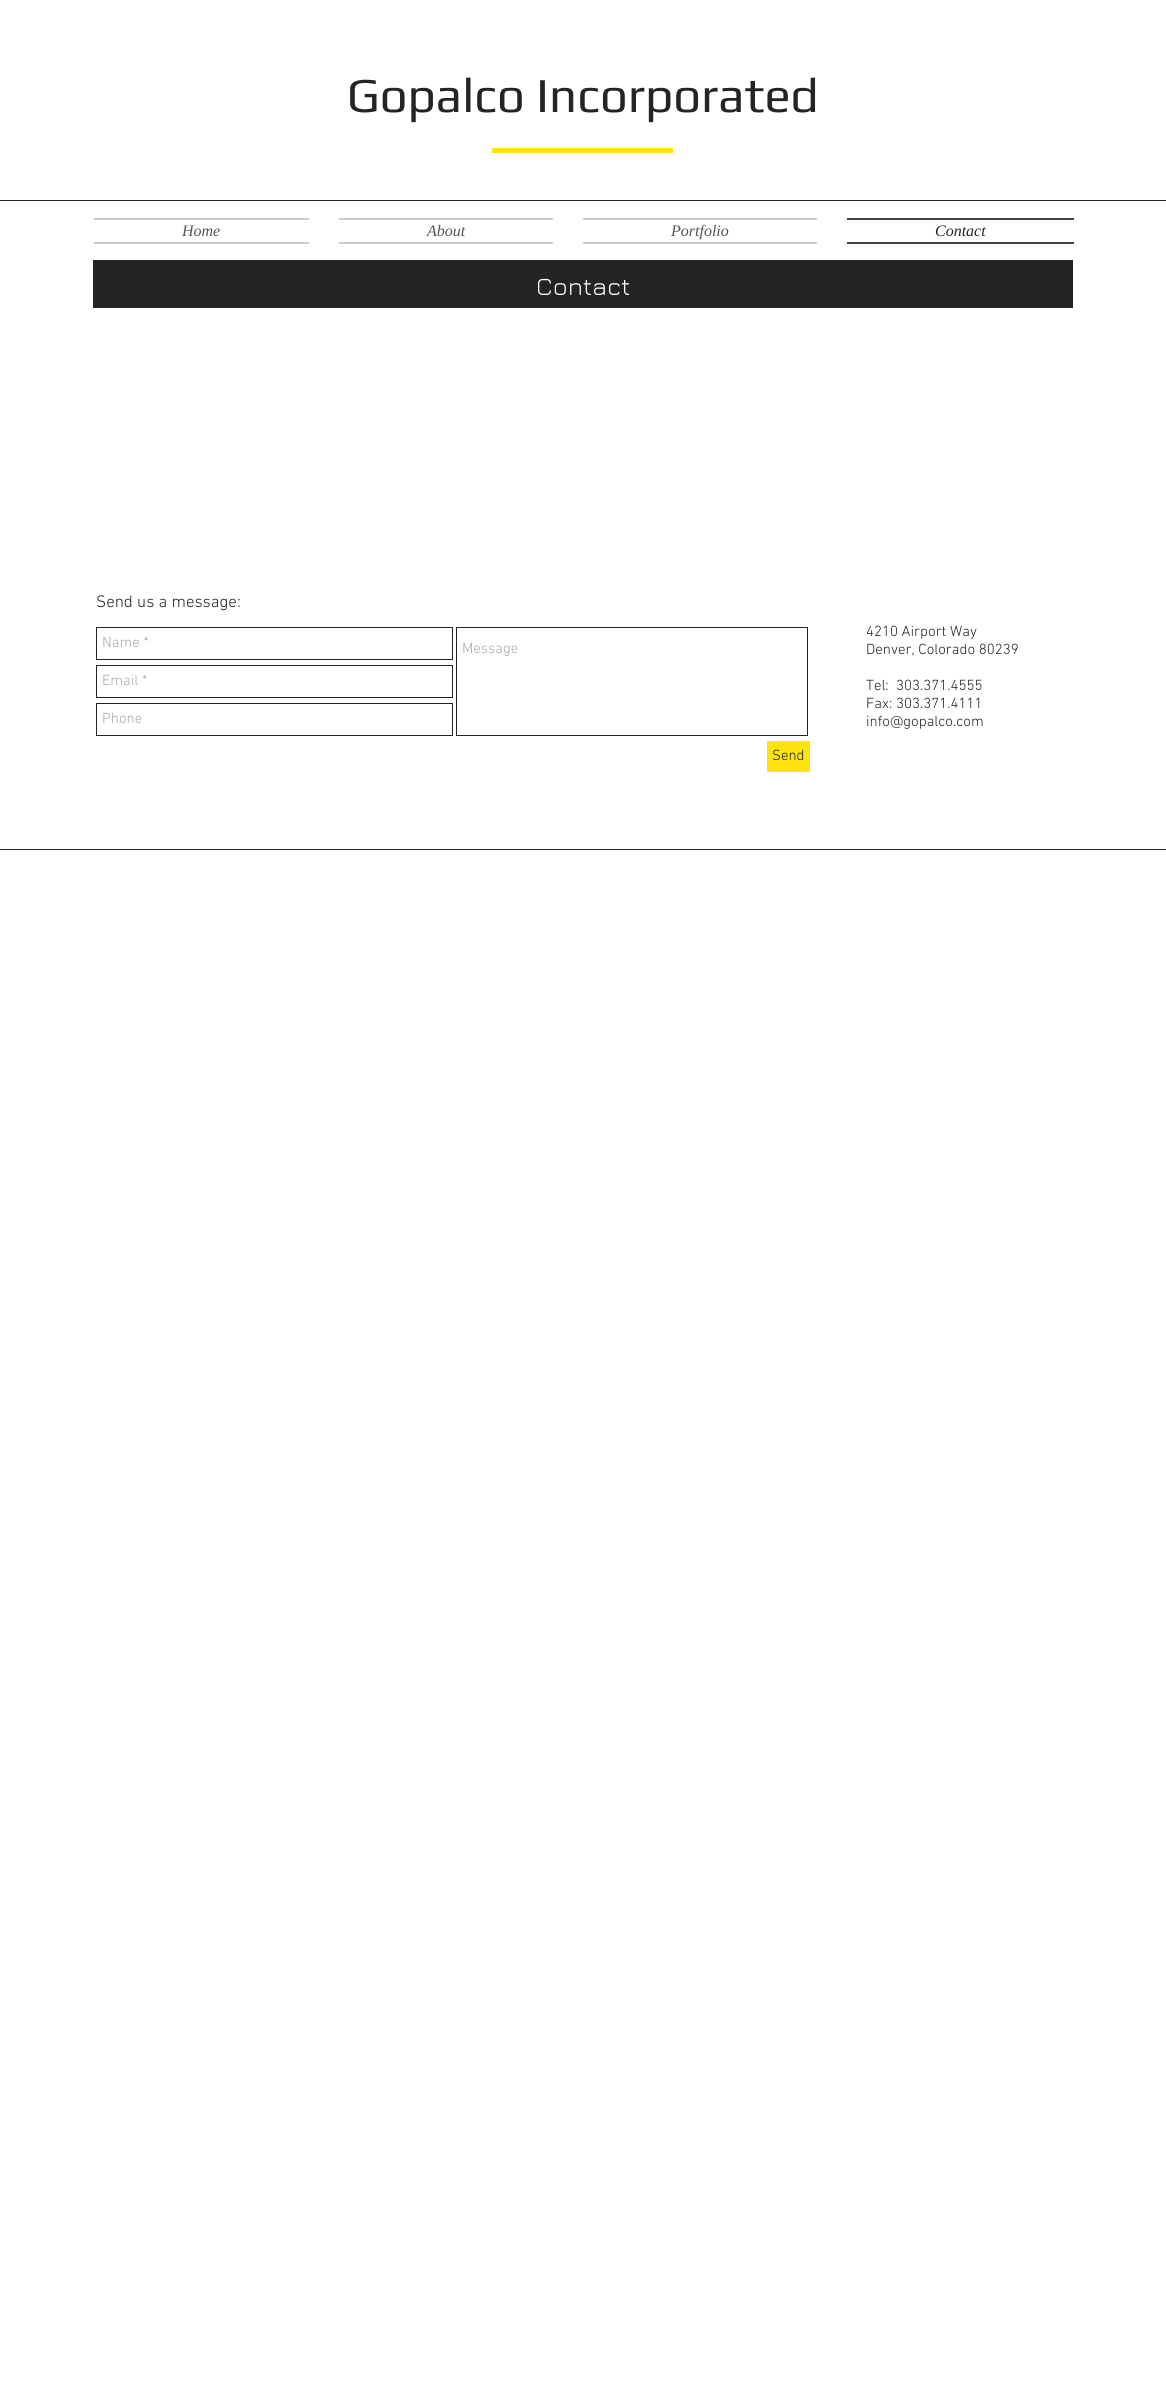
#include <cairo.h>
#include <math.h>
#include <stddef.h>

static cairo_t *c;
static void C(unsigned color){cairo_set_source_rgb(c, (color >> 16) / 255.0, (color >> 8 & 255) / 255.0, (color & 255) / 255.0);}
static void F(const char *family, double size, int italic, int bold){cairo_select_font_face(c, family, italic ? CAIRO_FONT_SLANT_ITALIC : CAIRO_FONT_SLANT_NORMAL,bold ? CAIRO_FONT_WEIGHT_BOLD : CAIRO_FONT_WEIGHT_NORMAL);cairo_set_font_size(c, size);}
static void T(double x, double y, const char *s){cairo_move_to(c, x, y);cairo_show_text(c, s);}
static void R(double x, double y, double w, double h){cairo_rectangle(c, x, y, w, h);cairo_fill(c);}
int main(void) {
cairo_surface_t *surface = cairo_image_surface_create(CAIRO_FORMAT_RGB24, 1166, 2396);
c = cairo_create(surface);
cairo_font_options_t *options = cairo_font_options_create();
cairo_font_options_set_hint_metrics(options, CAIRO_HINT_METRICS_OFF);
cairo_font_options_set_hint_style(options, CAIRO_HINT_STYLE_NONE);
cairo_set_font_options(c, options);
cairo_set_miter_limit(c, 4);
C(0xffffff);
cairo_paint(c);
F("Play",49,0,0);
C(0x242424);
T(347,112,"Gopalco Incorporated");
C(0xffe30f);
R(492,148,181,5);
C(0x242424);
R(0,200,1166,1);
C(0xcccccc);
R(94,218,215,2);
R(94,242,215,2);
F("Liberation Serif",16,1,0);
C(0x555555);
T(182,236,"Home");
C(0xcccccc);
R(339,218,214,2);
R(339,242,214,2);
C(0x555555);
T(427,236,"About");
C(0xcccccc);
R(583,218,234,2);
R(583,242,234,2);
C(0x555555);
T(671,236,"Portfolio");
C(0x414141);
R(847,218,227,2);
R(847,242,227,2);
C(0x242424);
T(935,236,"Contact");
R(93,260,980,48);
F("Jura",25,0,0);
C(0xffffff);
T(536,295,"Contact");
F("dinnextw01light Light",17,0,0);
C(0x242424);
T(96,607,"Send us a message:");
cairo_rectangle(c,96.5,627.5,356,32);
cairo_set_line_width(c,1);
cairo_stroke(c);
F("dinnextw01light Light",15,0,0);
C(0xa9a9a9);
T(102,647,"Name *");
cairo_rectangle(c,456.5,627.5,351,108);
C(0x242424);
cairo_stroke(c);
C(0xa9a9a9);
T(462,653,"Message");
cairo_rectangle(c,96.5,665.5,356,32);
C(0x242424);
cairo_stroke(c);
C(0xa9a9a9);
T(102,685,"Email *");
cairo_rectangle(c,96.5,703.5,356,32);
C(0x242424);
cairo_stroke(c);
C(0xa9a9a9);
T(102,723,"Phone");
C(0xffe30f);
R(767,741,43,31);
C(0x242424);
T(772,760,"Send");
T(866,636,"4210 Airport Way");
T(866,654,"Denver, Colorado 80239");
T(866,690,"Tel:  303.371.4555");
T(866,708,"Fax: 303.371.4111");
T(866,726,"info@gopalco.com");
R(0,849,1166,1);
cairo_surface_write_to_png(surface, "o.png");
cairo_font_options_destroy(options);
cairo_destroy(c);
cairo_surface_destroy(surface);
return 0;
}
